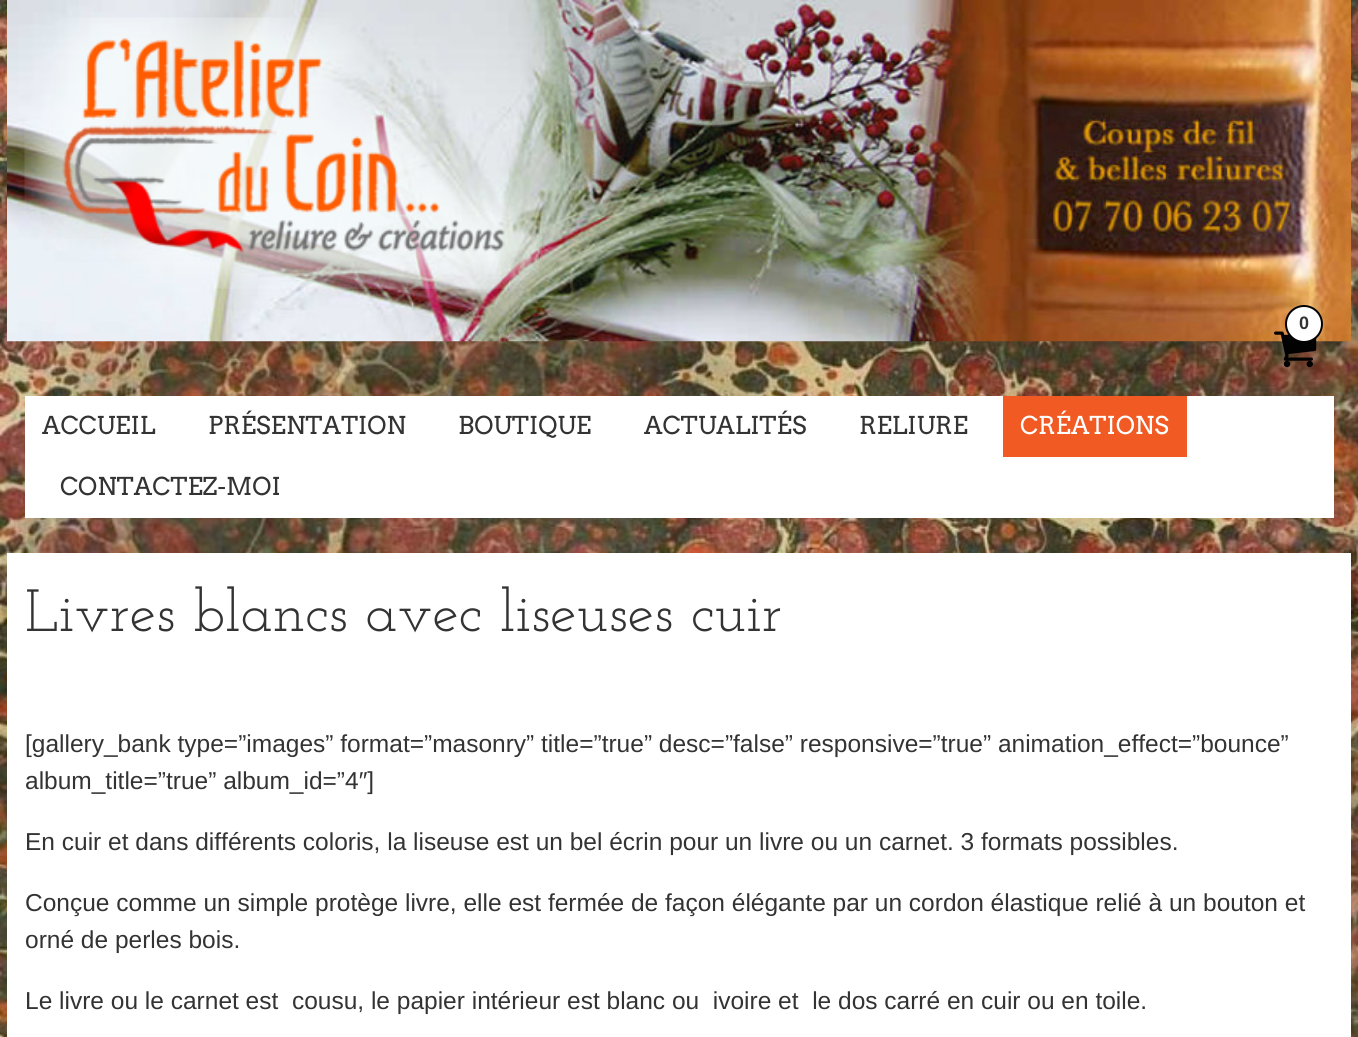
#include <cairo.h>
#include <math.h>
#include <stddef.h>

static cairo_t *c;
static void C(unsigned color){cairo_set_source_rgb(c, (color >> 16) / 255.0, (color >> 8 & 255) / 255.0, (color & 255) / 255.0);}
static void F(const char *family, double size, int italic, int bold){cairo_select_font_face(c, family, italic ? CAIRO_FONT_SLANT_ITALIC : CAIRO_FONT_SLANT_NORMAL,bold ? CAIRO_FONT_WEIGHT_BOLD : CAIRO_FONT_WEIGHT_NORMAL);cairo_set_font_size(c, size);}
static void T(double x, double y, const char *s){cairo_move_to(c, x, y);cairo_show_text(c, s);}
static void R(double x, double y, double w, double h){cairo_rectangle(c, x, y, w, h);cairo_fill(c);}
static void I(const char *path, double x, double y, double w, double h){cairo_surface_t *image = cairo_image_surface_create_from_png(path);cairo_save(c);cairo_set_source_surface(c, image, x, y);cairo_rectangle(c, x, y, w, h);cairo_fill(c);cairo_restore(c);cairo_surface_destroy(image);}
int main(void) {
cairo_surface_t *surface = cairo_image_surface_create(CAIRO_FORMAT_RGB24, 1358, 1037);
c = cairo_create(surface);
cairo_font_options_t *options = cairo_font_options_create();
cairo_font_options_set_hint_metrics(options, CAIRO_HINT_METRICS_OFF);
cairo_font_options_set_hint_style(options, CAIRO_HINT_STYLE_NONE);
cairo_set_font_options(c, options);
cairo_set_miter_limit(c, 4);
C(0xffffff);
cairo_paint(c);
I("1.png",0,0,1358,1037);
I("2.png",7,0,1344,342);
I("3.png",24,17,515,272);
I("4.png",1274,331,43,37);
C(0xffffff);
cairo_arc(c,1304,324,18,0,2 * M_PI);
cairo_fill_preserve(c);
C(0x020202);
cairo_stroke(c);
F("Liberation Sans",18,0,1);
C(0x333333);
T(1299,329,"0");
C(0xffffff);
R(25,396,1309,122);
F("Arvo",24.5,0,0);
C(0x333333);
T(42,434,"ACCUEIL");
T(208,434,"PRÉSENTATION");
T(458,434,"BOUTIQUE");
T(644,434,"ACTUALITÉS");
T(859,434,"RELIURE");
C(0xf15a23);
R(1003,396,184,61);
C(0xffffff);
T(1020,434,"CRÉATIONS");
C(0x333333);
T(60,495,"CONTACTEZ-MOI");
C(0xffffff);
R(7,553,1344,484);
F("Josefin Slab",59.5,0,0);
C(0x333333);
T(25,631,"Livres blancs avec liseuses cuir");
F("Liberation Sans",24.5,0,0);
T(25,752,"[gallery_bank type=”images” format=”masonry” title=”true” desc=”false” responsive=”true” animation_effect=”bounce”");
T(25,789,"album_title=”true” album_id=”4″]");
T(25,850,"En cuir et dans différents coloris, la liseuse est un bel écrin pour un livre ou un carnet. 3 formats possibles.");
T(25,911,"Conçue comme un simple protège livre, elle est fermée de façon élégante par un cordon élastique relié à un bouton et");
T(25,948,"orné de perles bois.");
T(25,1009,"Le livre ou le carnet est  cousu, le papier intérieur est blanc ou  ivoire et  le dos carré en cuir ou en toile.");
cairo_surface_write_to_png(surface, "o.png");
cairo_font_options_destroy(options);
cairo_destroy(c);
cairo_surface_destroy(surface);
return 0;
}
